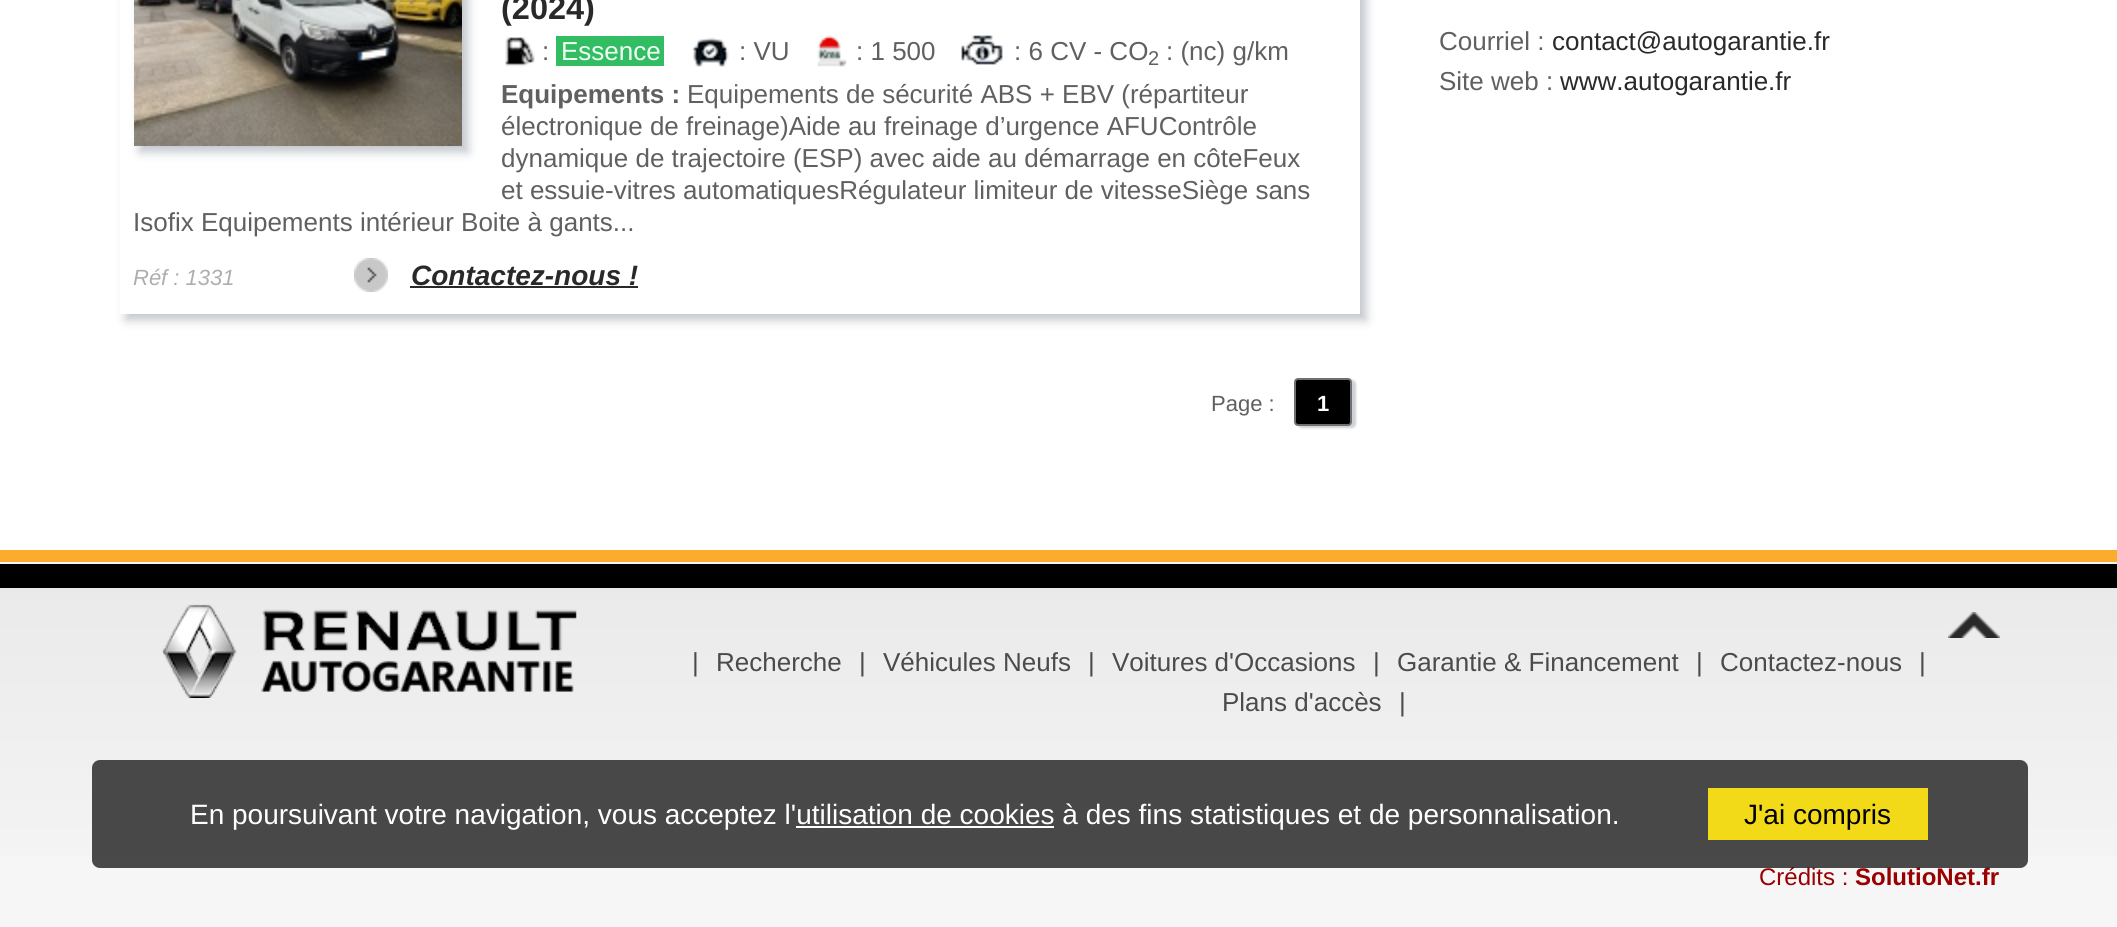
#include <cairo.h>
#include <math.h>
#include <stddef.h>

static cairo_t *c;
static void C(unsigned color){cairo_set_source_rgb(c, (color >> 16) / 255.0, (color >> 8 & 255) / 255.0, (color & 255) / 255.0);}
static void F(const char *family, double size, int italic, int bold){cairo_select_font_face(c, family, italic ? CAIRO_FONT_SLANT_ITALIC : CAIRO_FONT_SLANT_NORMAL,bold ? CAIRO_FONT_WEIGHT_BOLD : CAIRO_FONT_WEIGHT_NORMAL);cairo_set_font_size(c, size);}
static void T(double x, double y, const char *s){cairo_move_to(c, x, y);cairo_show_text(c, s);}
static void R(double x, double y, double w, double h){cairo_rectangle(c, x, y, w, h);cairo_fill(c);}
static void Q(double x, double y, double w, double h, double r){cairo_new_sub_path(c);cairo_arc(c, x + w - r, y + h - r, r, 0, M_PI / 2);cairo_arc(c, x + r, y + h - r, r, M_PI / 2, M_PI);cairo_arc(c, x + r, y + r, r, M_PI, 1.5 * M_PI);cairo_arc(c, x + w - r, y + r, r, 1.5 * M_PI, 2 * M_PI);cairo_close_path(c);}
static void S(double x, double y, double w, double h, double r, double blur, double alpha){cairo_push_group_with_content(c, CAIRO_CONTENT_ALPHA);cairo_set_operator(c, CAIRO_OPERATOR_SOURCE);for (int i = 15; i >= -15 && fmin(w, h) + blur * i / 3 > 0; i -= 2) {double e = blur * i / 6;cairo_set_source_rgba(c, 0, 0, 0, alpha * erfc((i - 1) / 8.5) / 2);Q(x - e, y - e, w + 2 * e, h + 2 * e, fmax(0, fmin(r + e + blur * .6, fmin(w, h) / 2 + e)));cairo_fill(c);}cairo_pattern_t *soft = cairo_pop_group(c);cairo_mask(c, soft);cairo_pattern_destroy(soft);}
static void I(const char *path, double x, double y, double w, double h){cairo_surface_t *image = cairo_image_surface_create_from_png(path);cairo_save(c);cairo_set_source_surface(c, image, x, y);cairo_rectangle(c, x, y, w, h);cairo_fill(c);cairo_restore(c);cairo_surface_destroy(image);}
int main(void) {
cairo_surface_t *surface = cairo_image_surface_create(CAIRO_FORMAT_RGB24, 2117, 927);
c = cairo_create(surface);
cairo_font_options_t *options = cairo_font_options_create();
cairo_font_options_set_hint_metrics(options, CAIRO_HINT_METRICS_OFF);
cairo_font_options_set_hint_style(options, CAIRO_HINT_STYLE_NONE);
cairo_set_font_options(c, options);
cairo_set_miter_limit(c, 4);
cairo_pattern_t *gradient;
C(0xf6f6f6);
cairo_paint(c);
C(0xffffff);
R(0,0,2117,550);
cairo_save(c);
cairo_set_fill_rule(c,CAIRO_FILL_RULE_EVEN_ODD);
cairo_new_path(c);
cairo_move_to(c,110,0);
cairo_line_to(c,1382,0);
cairo_line_to(c,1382,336);
cairo_line_to(c,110,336);
cairo_close_path(c);
cairo_move_to(c,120,-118);
cairo_line_to(c,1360,-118);
cairo_line_to(c,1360,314);
cairo_line_to(c,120,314);
cairo_close_path(c);
cairo_clip(c);
C(0xc1c5cb);
S(126,-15,1240,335,0,5,1);
cairo_restore(c);
C(0xc1c5cb);
S(140,-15,328,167,0,5,1);
I("1.png",134,0,328,146);
F("Liberation Sans",32.5,0,1);
C(0x292929);
T(501,19,"(2024)");
I("2.png",505,37,30,30);
F("Liberation Sans",26,0,0);
C(0x606060);
T(542,60,":");
C(0x33bd62);
R(556,36,108,30);
C(0xeffff5);
T(561,60,"Essence");
I("3.png",692,37,37,30);
C(0x606060);
T(739,60,": VU");
I("4.png",817,35,30,32);
T(856,60,": 1 500");
I("5.png",960,35,43,30);
T(1014,60,": 6 CV - CO");
F("Liberation Sans",20,0,0);
T(1148,65,"2");
F("Liberation Sans",26,0,0);
T(1166,60,": (nc) g/km");
F("Liberation Sans",26,0,1);
T(501,103,"Equipements :");
F("Liberation Sans",26,0,0);
T(687,103,"Equipements de sécurité ABS + EBV (répartiteur");
T(501,135,"électronique de freinage)Aide au freinage d’urgence AFUContrôle");
T(501,167,"dynamique de trajectoire (ESP) avec aide au démarrage en côteFeux");
T(501,199,"et essuie-vitres automatiquesRégulateur limiteur de vitesseSiège sans");
T(133,231,"Isofix Equipements intérieur Boite à gants...");
F("Liberation Sans",22,1,0);
C(0xaeaeae);
T(133,285,"Réf : 1331");
I("6.png",354,258,34,34);
F("Liberation Sans",28,1,1);
C(0x292929);
T(411,285,"Contactez-nous !");
R(410,286,228,2);
F("Liberation Sans",22,0,0);
C(0x606060);
T(1211,411,"Page :");
C(0xced1d6);
S(1298,380,58,48,4,1,1);
C(0x000001);
Q(1295,379,56,46,3);
cairo_fill_preserve(c);
C(0x707070);
cairo_stroke(c);
F("Liberation Sans",22,0,1);
C(0xffffff);
T(1317,411,"1");
F("Liberation Sans",26,0,0);
C(0x606060);
T(1439,50,"Courriel :");
C(0x292929);
T(1552,50,"contact@autogarantie.fr");
C(0x606060);
T(1439,90,"Site web :");
C(0x292929);
T(1560,90,"www.autogarantie.fr");
C(0xfaad2c);
R(0,550,2117,12);
gradient = cairo_pattern_create_linear(1059,588,1059,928);
cairo_pattern_add_color_stop_rgba(gradient,0,0.918,0.918,0.918,1);
cairo_pattern_add_color_stop_rgba(gradient,1,0.965,0.965,0.965,1);
cairo_set_source(c,gradient);
cairo_pattern_destroy(gradient);
R(0,588,2117,269);
C(0x000001);
R(0,564,2117,24);
I("7.png",162,604,415,94);
I("8.png",1948,612,52,26);
C(0x4b4b4b);
T(692,671,"|");
T(716,671,"Recherche");
T(859,671,"|");
T(883,671,"Véhicules Neufs");
T(1088,671,"|");
T(1112,671,"Voitures d'Occasions");
T(1373,671,"|");
T(1397,671,"Garantie & Financement");
T(1696,671,"|");
T(1720,671,"Contactez-nous");
T(1919,671,"|");
T(1222,711,"Plans d'accès");
T(1399,711,"|");
F("Liberation Sans",24,0,0);
C(0x990000);
T(1759,885,"Crédits :");
F("Liberation Sans",24,0,1);
T(1855,885,"SolutioNet.fr");
cairo_set_source_rgba(c,0,0,0,0.7);
Q(92,760,1936,108,8);
cairo_fill(c);
F("Liberation Sans",28,0,0);
C(0xffffff);
T(190,824,"En poursuivant votre navigation, vous acceptez l'utilisation de cookies à des fins statistiques et de personnalisation.");
C(0xf2da19);
R(1708,788,220,52);
C(0x000000);
T(1744,824,"J'ai compris");
C(0xffffff);
R(796,826,258,2);
cairo_surface_write_to_png(surface, "o.png");
cairo_font_options_destroy(options);
cairo_destroy(c);
cairo_surface_destroy(surface);
return 0;
}
